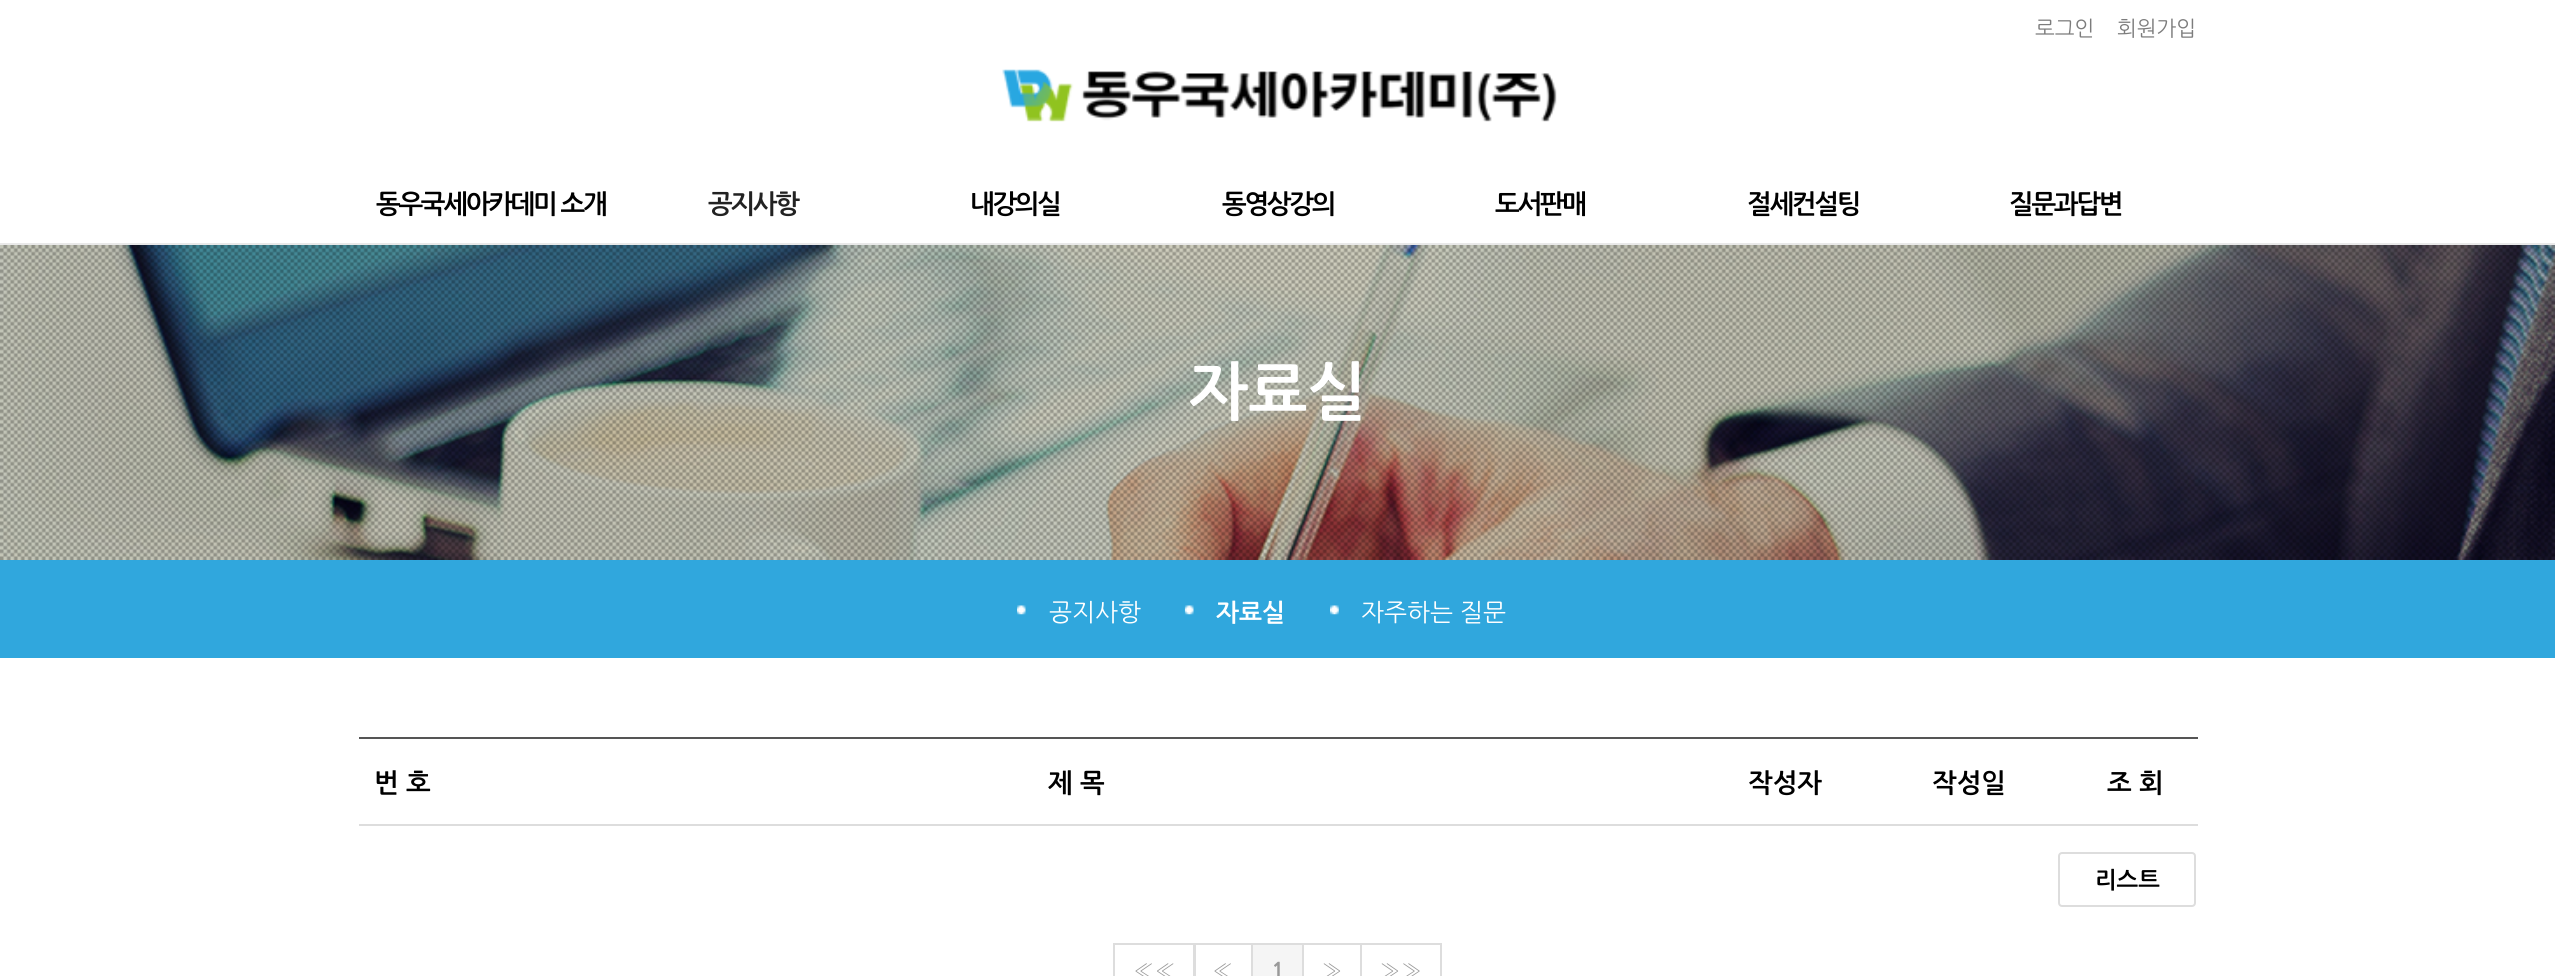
#include <cairo.h>
#include <math.h>
#include <stddef.h>

static cairo_t *c;
static void C(unsigned color){cairo_set_source_rgb(c, (color >> 16) / 255.0, (color >> 8 & 255) / 255.0, (color & 255) / 255.0);}
static void F(const char *family, double size, int italic, int bold){cairo_select_font_face(c, family, italic ? CAIRO_FONT_SLANT_ITALIC : CAIRO_FONT_SLANT_NORMAL,bold ? CAIRO_FONT_WEIGHT_BOLD : CAIRO_FONT_WEIGHT_NORMAL);cairo_set_font_size(c, size);}
static void T(double x, double y, const char *s){cairo_move_to(c, x, y);cairo_show_text(c, s);}
static void L(double x, double y, const char *s, double letter, double word){cairo_move_to(c, x, y);while (*s) {char ch[5] = {0};int n = 0;do ch[n++] = *s++; while ((*s & 0xC0) == 0x80);cairo_show_text(c, ch);cairo_rel_move_to(c, letter + word * (*ch == ' '), 0);}}
static void R(double x, double y, double w, double h){cairo_rectangle(c, x, y, w, h);cairo_fill(c);}
static void Q(double x, double y, double w, double h, double r){cairo_new_sub_path(c);cairo_arc(c, x + w - r, y + h - r, r, 0, M_PI / 2);cairo_arc(c, x + r, y + h - r, r, M_PI / 2, M_PI);cairo_arc(c, x + r, y + r, r, M_PI, 1.5 * M_PI);cairo_arc(c, x + w - r, y + r, r, 1.5 * M_PI, 2 * M_PI);cairo_close_path(c);}
static void I(const char *path, double x, double y, double w, double h){cairo_surface_t *image = cairo_image_surface_create_from_png(path);cairo_save(c);cairo_set_source_surface(c, image, x, y);cairo_rectangle(c, x, y, w, h);cairo_fill(c);cairo_restore(c);cairo_surface_destroy(image);}
int main(void) {
cairo_surface_t *surface = cairo_image_surface_create(CAIRO_FORMAT_RGB24, 2555, 976);
c = cairo_create(surface);
cairo_font_options_t *options = cairo_font_options_create();
cairo_font_options_set_hint_metrics(options, CAIRO_HINT_METRICS_OFF);
cairo_font_options_set_hint_style(options, CAIRO_HINT_STYLE_NONE);
cairo_set_font_options(c, options);
cairo_set_miter_limit(c, 4);
C(0xffffff);
cairo_paint(c);
C(0xe9e9e9);
R(0,243,2555,2);
F("NanumGothic",21,0,0);
C(0x7c7c7c);
T(2035,35,"로그인");
T(2117,35,"회원가입");
I("1.png",1002,69,555,53);
F("NanumGothic",26.25,0,1);
C(0x000000);
L(376,212,"동우국세아카데미 소개",-2.25,0);
C(0x222222);
L(708,212,"공지사항",-2.25,0);
C(0x000000);
L(970,212,"내강의실",-2.25,0);
L(1222,212,"동영상강의",-2.25,0);
L(1495,212,"도서판매",-2.25,0);
L(1747,212,"절세컨설팅",-2.25,0);
L(2009,212,"질문과답변",-2.25,0);
I("2.png",0,245,2555,315);
F("NanumGothic",63,0,1);
C(0xffffff);
T(1189,411,"자료실");
C(0x30a7dd);
R(0,560,2555,98);
I("3.png",1017,605,9,10);
F("NanumGothic",24.5,0,0);
C(0xffffff);
T(1049,620,"공지사항");
I("4.png",1184,605,10,10);
F("NanumGothic",24.5,0,1);
T(1216,620,"자료실");
I("5.png",1330,605,9,10);
F("NanumGothic",24.5,0,0);
T(1361,620,"자주하는 질문");
F("NanumGothic",26.25,0,1);
C(0x000000);
T(374,791,"번 호");
T(1048,791,"제 목");
T(1748,791,"작성자");
T(1932,791,"작성일");
C(0x555555);
R(359,737,1839,2);
C(0xdddddd);
R(359,824,1839,2);
C(0x000000);
T(2107,791,"조 회");
Q(2059,853,136,53,3);
C(0xdddddd);
cairo_stroke(c);
F("NanumGothic",23,0,1);
C(0x000000);
T(2095,887,"리스트");
cairo_rectangle(c,1114,944,80,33);
C(0xdddddd);
cairo_stroke(c);
F("NanumGothic",23,0,0);
C(0x999999);
T(1133,978,"««");
cairo_rectangle(c,1195,944,57,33);
C(0xdddddd);
cairo_stroke(c);
C(0x999999);
T(1212,978,"«");
cairo_rectangle(c,1303,944,58,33);
C(0xdddddd);
cairo_stroke(c);
C(0xf5f5f5);
cairo_rectangle(c,1252,944,51,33);
cairo_fill_preserve(c);
C(0xdddddd);
cairo_stroke(c);
F("NanumGothic",23,0,1);
C(0x999999);
T(1271,978,"1");
F("NanumGothic",23,0,0);
T(1321,978,"»");
cairo_rectangle(c,1361,944,80,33);
C(0xdddddd);
cairo_stroke(c);
C(0x999999);
T(1379,978,"»»");
cairo_surface_write_to_png(surface, "o.png");
cairo_font_options_destroy(options);
cairo_destroy(c);
cairo_surface_destroy(surface);
return 0;
}
